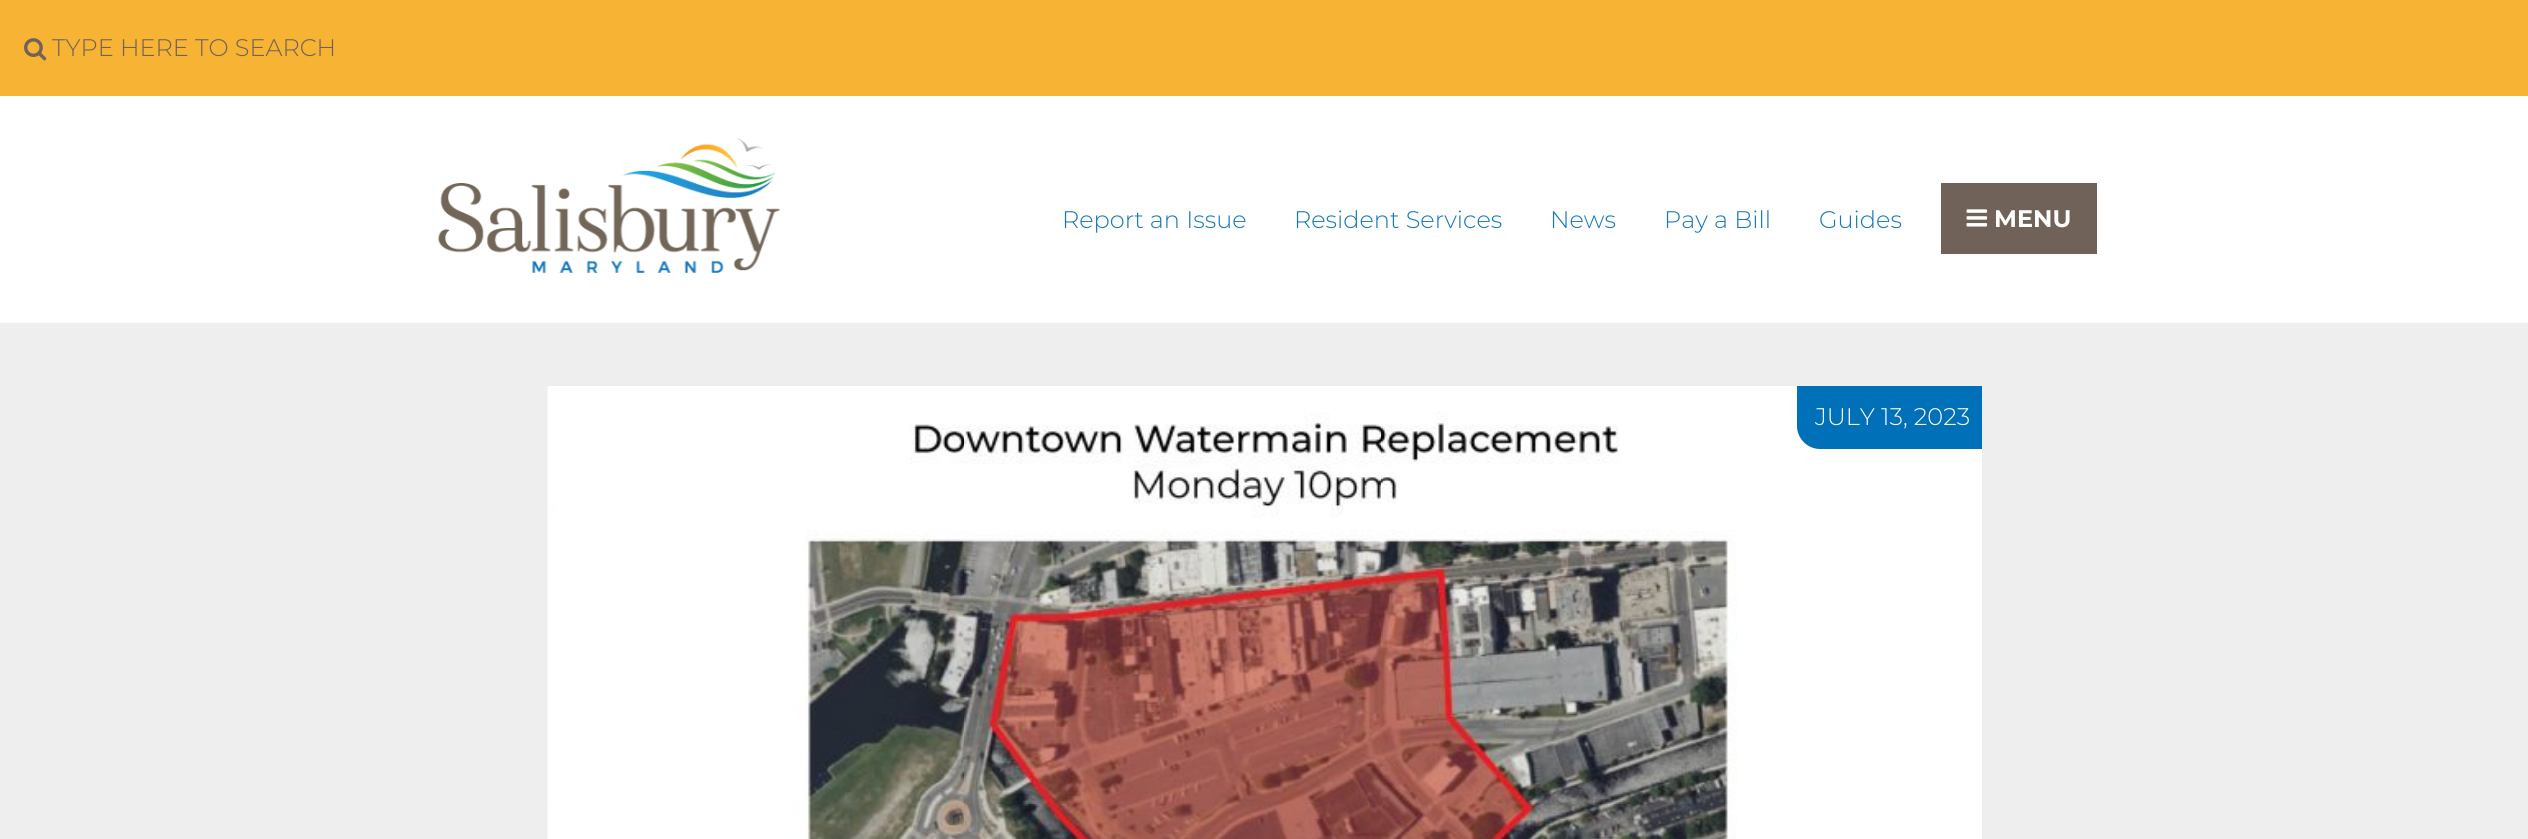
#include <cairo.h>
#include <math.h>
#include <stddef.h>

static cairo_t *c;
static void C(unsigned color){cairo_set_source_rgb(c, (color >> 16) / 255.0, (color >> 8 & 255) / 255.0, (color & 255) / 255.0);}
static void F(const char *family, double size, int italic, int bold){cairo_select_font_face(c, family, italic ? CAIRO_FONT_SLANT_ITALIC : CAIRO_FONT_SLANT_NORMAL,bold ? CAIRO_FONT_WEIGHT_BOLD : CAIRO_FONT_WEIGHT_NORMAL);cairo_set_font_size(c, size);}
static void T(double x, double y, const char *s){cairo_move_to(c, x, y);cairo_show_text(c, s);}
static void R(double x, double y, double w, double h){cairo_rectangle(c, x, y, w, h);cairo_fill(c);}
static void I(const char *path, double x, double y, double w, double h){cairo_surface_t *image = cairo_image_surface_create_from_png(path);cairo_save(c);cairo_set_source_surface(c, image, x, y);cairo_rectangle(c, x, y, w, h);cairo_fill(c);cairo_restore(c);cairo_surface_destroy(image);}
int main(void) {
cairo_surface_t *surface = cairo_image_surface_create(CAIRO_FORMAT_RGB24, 2528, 839);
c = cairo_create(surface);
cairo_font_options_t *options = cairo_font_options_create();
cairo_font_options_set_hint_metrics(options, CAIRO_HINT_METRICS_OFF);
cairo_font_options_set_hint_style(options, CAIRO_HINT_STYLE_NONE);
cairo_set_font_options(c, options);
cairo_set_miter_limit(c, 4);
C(0xffffff);
cairo_paint(c);
C(0xf7b334);
R(0,0,2528,96);
I("1.png",24,38,23,23);
F("Montserrat Light",24,0,0);
C(0x706259);
T(52,56,"TYPE HERE TO SEARCH");
I("2.png",438,138,342,135);
C(0x1779ba);
T(1062,228,"Report an Issue");
T(1294,228,"Resident Services");
T(1550,228,"News");
T(1664,228,"Pay a Bill");
T(1819,228,"Guides");
C(0x706259);
R(1941,183,156,71);
I("3.png",1966,209,22,18);
F("Montserrat",24,0,1);
C(0xfefefe);
T(1994,227,"MENU");
C(0xeeeeee);
R(0,323,2528,516);
C(0xffffff);
R(1737,386,245,453);
I("4.png",547,386,1190,453);
C(0x0071b9);
cairo_new_path(c);
cairo_move_to(c,1797,386);
cairo_line_to(c,1982,386);
cairo_line_to(c,1982,449);
cairo_line_to(c,1820,449);
cairo_curve_to(c,1807.5,449,1797,438.5,1797,426);
cairo_close_path(c);
cairo_fill(c);
F("Montserrat Light",24,0,0);
C(0xfefefe);
T(1815,425,"JULY 13, 2023");
cairo_surface_write_to_png(surface, "o.png");
cairo_font_options_destroy(options);
cairo_destroy(c);
cairo_surface_destroy(surface);
return 0;
}
